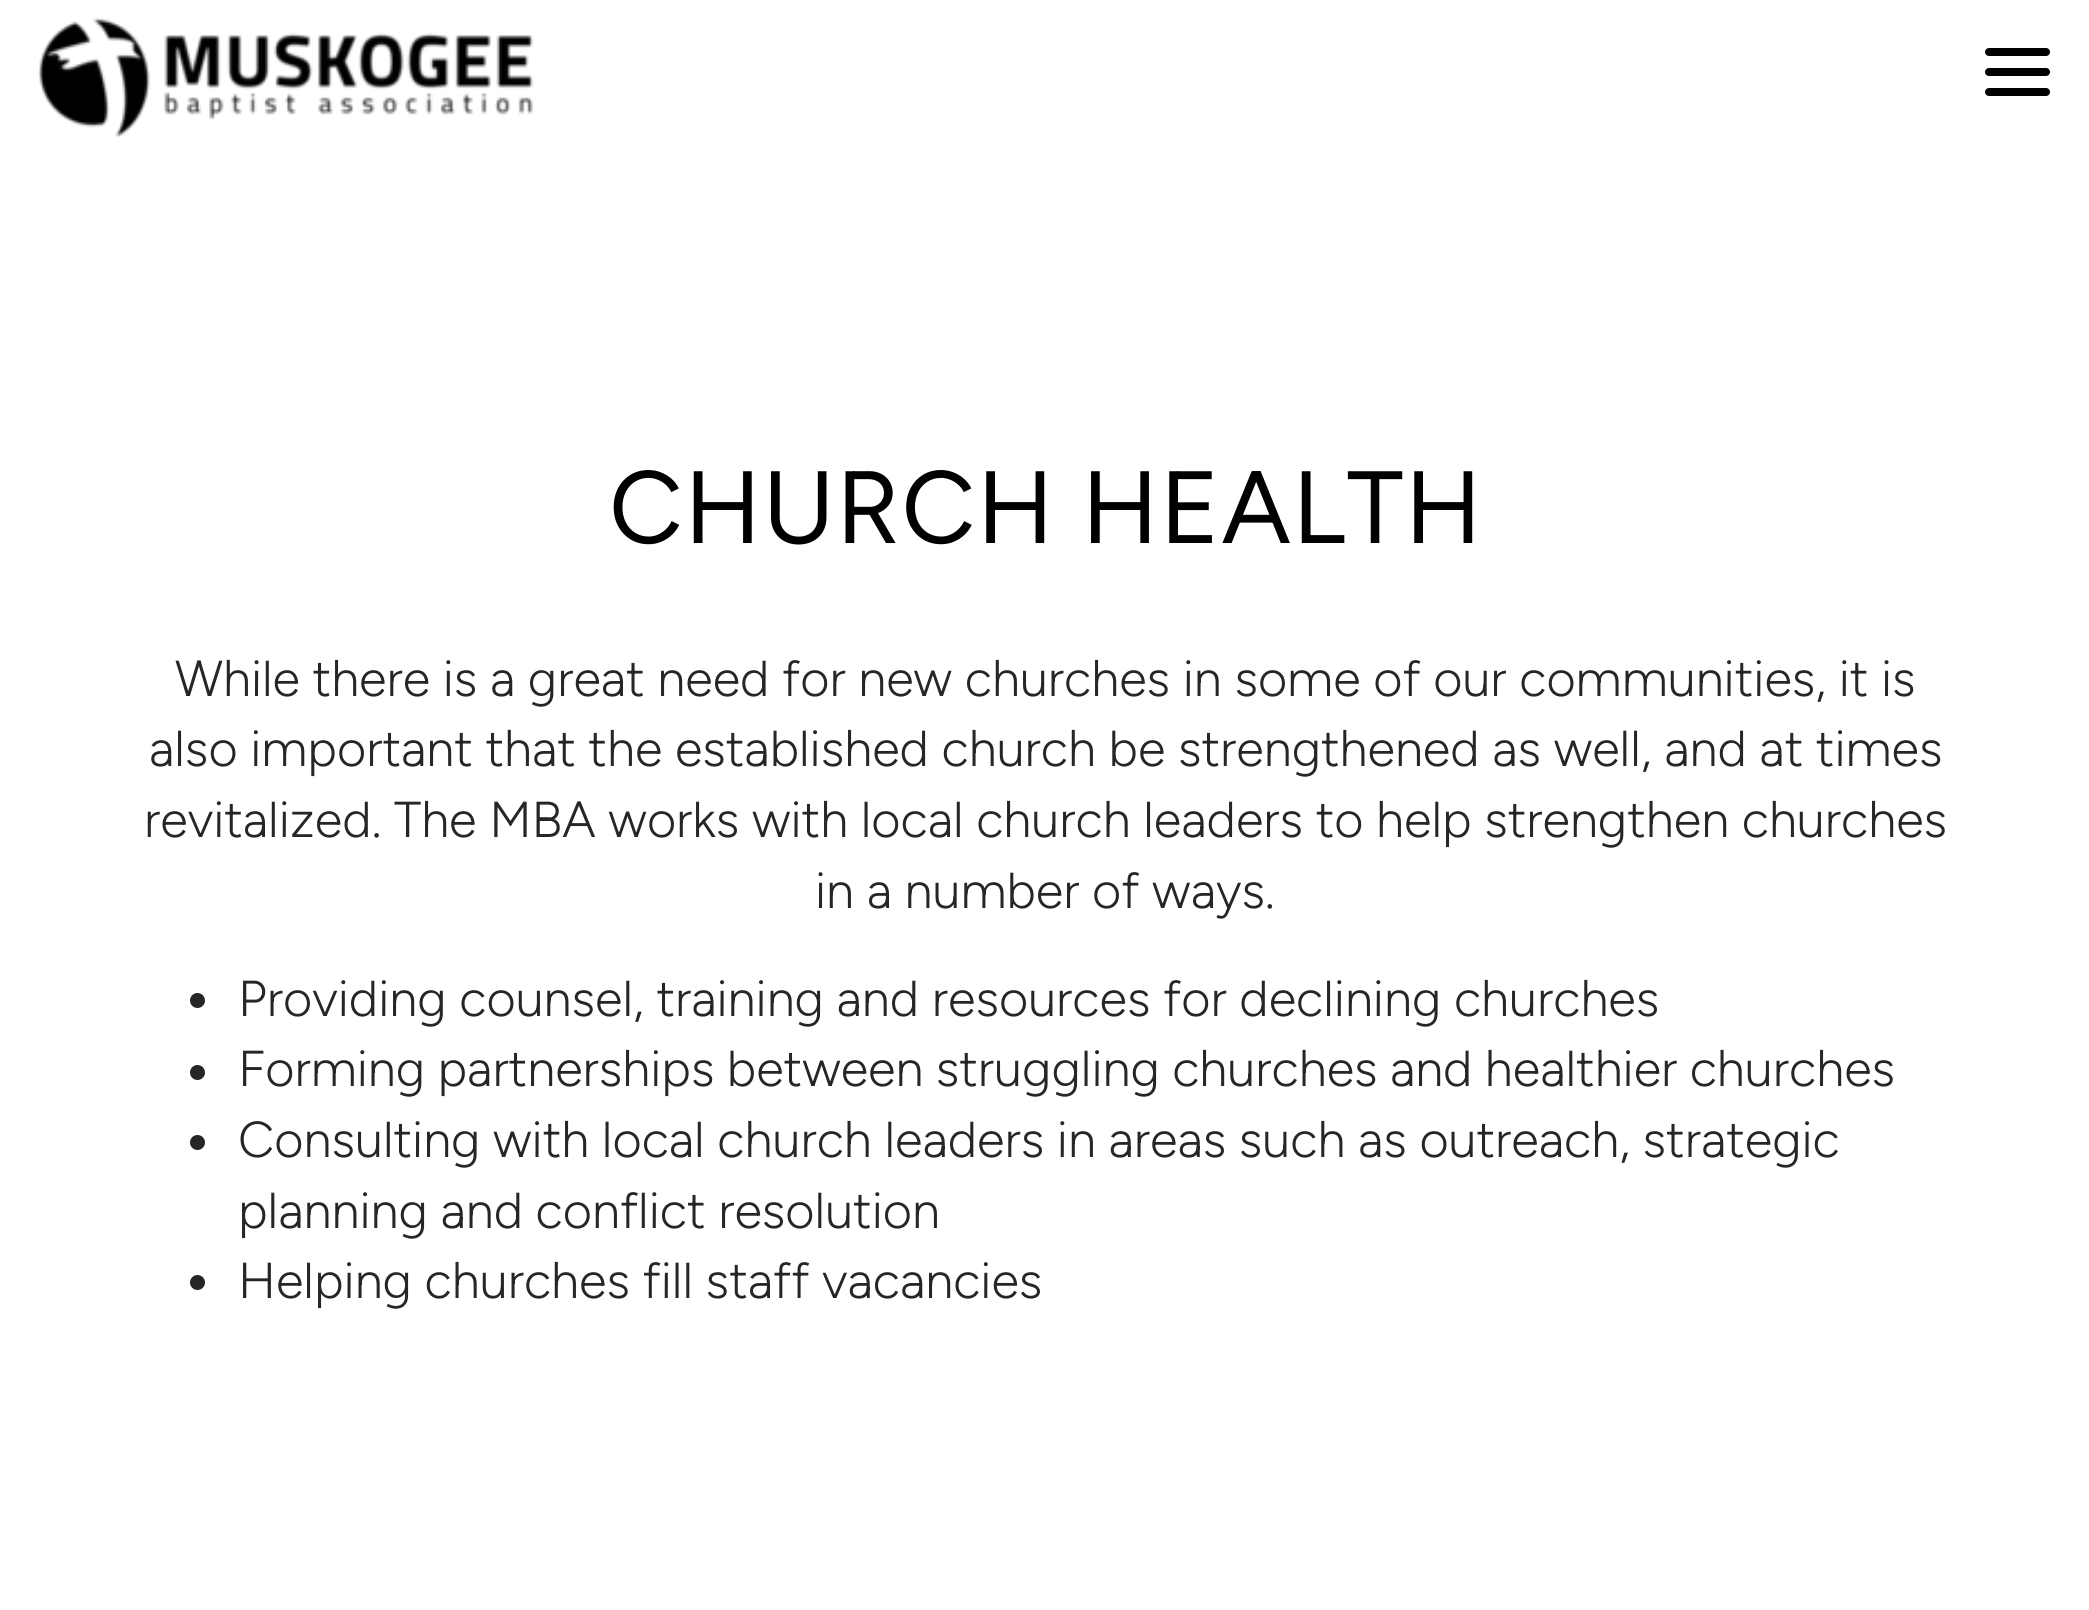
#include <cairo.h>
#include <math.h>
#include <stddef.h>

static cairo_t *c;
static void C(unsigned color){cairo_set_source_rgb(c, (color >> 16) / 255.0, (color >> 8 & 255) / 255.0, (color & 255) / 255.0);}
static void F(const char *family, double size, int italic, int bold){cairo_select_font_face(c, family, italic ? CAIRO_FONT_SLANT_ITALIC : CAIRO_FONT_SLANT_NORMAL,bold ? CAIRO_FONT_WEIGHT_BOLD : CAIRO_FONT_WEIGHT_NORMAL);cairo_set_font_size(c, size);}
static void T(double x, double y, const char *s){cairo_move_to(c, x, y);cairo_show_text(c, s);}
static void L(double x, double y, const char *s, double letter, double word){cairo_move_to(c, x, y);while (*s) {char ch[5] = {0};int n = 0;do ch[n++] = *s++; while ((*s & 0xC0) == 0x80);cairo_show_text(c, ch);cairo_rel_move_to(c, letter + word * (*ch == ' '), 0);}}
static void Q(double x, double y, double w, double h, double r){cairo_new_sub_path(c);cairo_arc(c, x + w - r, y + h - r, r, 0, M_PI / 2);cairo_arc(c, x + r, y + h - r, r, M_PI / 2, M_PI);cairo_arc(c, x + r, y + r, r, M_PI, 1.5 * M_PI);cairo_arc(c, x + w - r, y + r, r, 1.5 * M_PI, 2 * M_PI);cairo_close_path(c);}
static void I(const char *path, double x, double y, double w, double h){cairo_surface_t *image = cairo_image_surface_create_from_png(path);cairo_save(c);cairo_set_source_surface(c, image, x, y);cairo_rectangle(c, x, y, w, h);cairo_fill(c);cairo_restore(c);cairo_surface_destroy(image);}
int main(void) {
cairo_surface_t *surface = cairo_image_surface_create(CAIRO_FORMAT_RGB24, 2089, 1610);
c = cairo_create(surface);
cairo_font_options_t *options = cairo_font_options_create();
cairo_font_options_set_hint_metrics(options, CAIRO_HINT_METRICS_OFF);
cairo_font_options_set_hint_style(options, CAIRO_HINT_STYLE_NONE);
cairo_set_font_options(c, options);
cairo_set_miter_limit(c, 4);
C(0xffffff);
cairo_paint(c);
I("1.png",38,17,496,121);
C(0x000000);
Q(1985,48,65,8,4);
cairo_fill(c);
Q(1985,68,65,8,4);
cairo_fill(c);
Q(1985,88,65,8,4);
cairo_fill(c);
F("Figtree Light",102.5,0,0);
L(609,543,"CHURCH HEALTH",1.25,0);
F("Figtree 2 Light",50.45,0,0);
C(0x262626);
T(175,696,"While there is a great need for new churches in some of our communities, it is");
T(149,766,"also important that the established church be strengthened as well, and at times");
T(144,837,"revitalized. The MBA works with local church leaders to help strengthen churches");
T(815,908,"in a number of ways.");
cairo_new_path(c);
cairo_arc(c,197.5,1000.5,7.5,0,2 * M_PI);
cairo_fill(c);
T(238,1016,"Providing counsel, training and resources for declining churches");
cairo_new_path(c);
cairo_arc(c,197.5,1072.5,7.5,0,2 * M_PI);
cairo_fill(c);
L(238,1086,"Forming partnerships between struggling churches and healthier churches",0,-.25);
cairo_new_path(c);
cairo_arc(c,197.5,1142.5,7.5,0,2 * M_PI);
cairo_fill(c);
T(238,1157,"Consulting with local church leaders in areas such as outreach, strategic");
T(238,1228,"planning and conflict resolution");
cairo_new_path(c);
cairo_arc(c,197.5,1282.5,7.5,0,2 * M_PI);
cairo_fill(c);
T(238,1298,"Helping churches fill staff vacancies");
cairo_surface_write_to_png(surface, "o.png");
cairo_font_options_destroy(options);
cairo_destroy(c);
cairo_surface_destroy(surface);
return 0;
}
